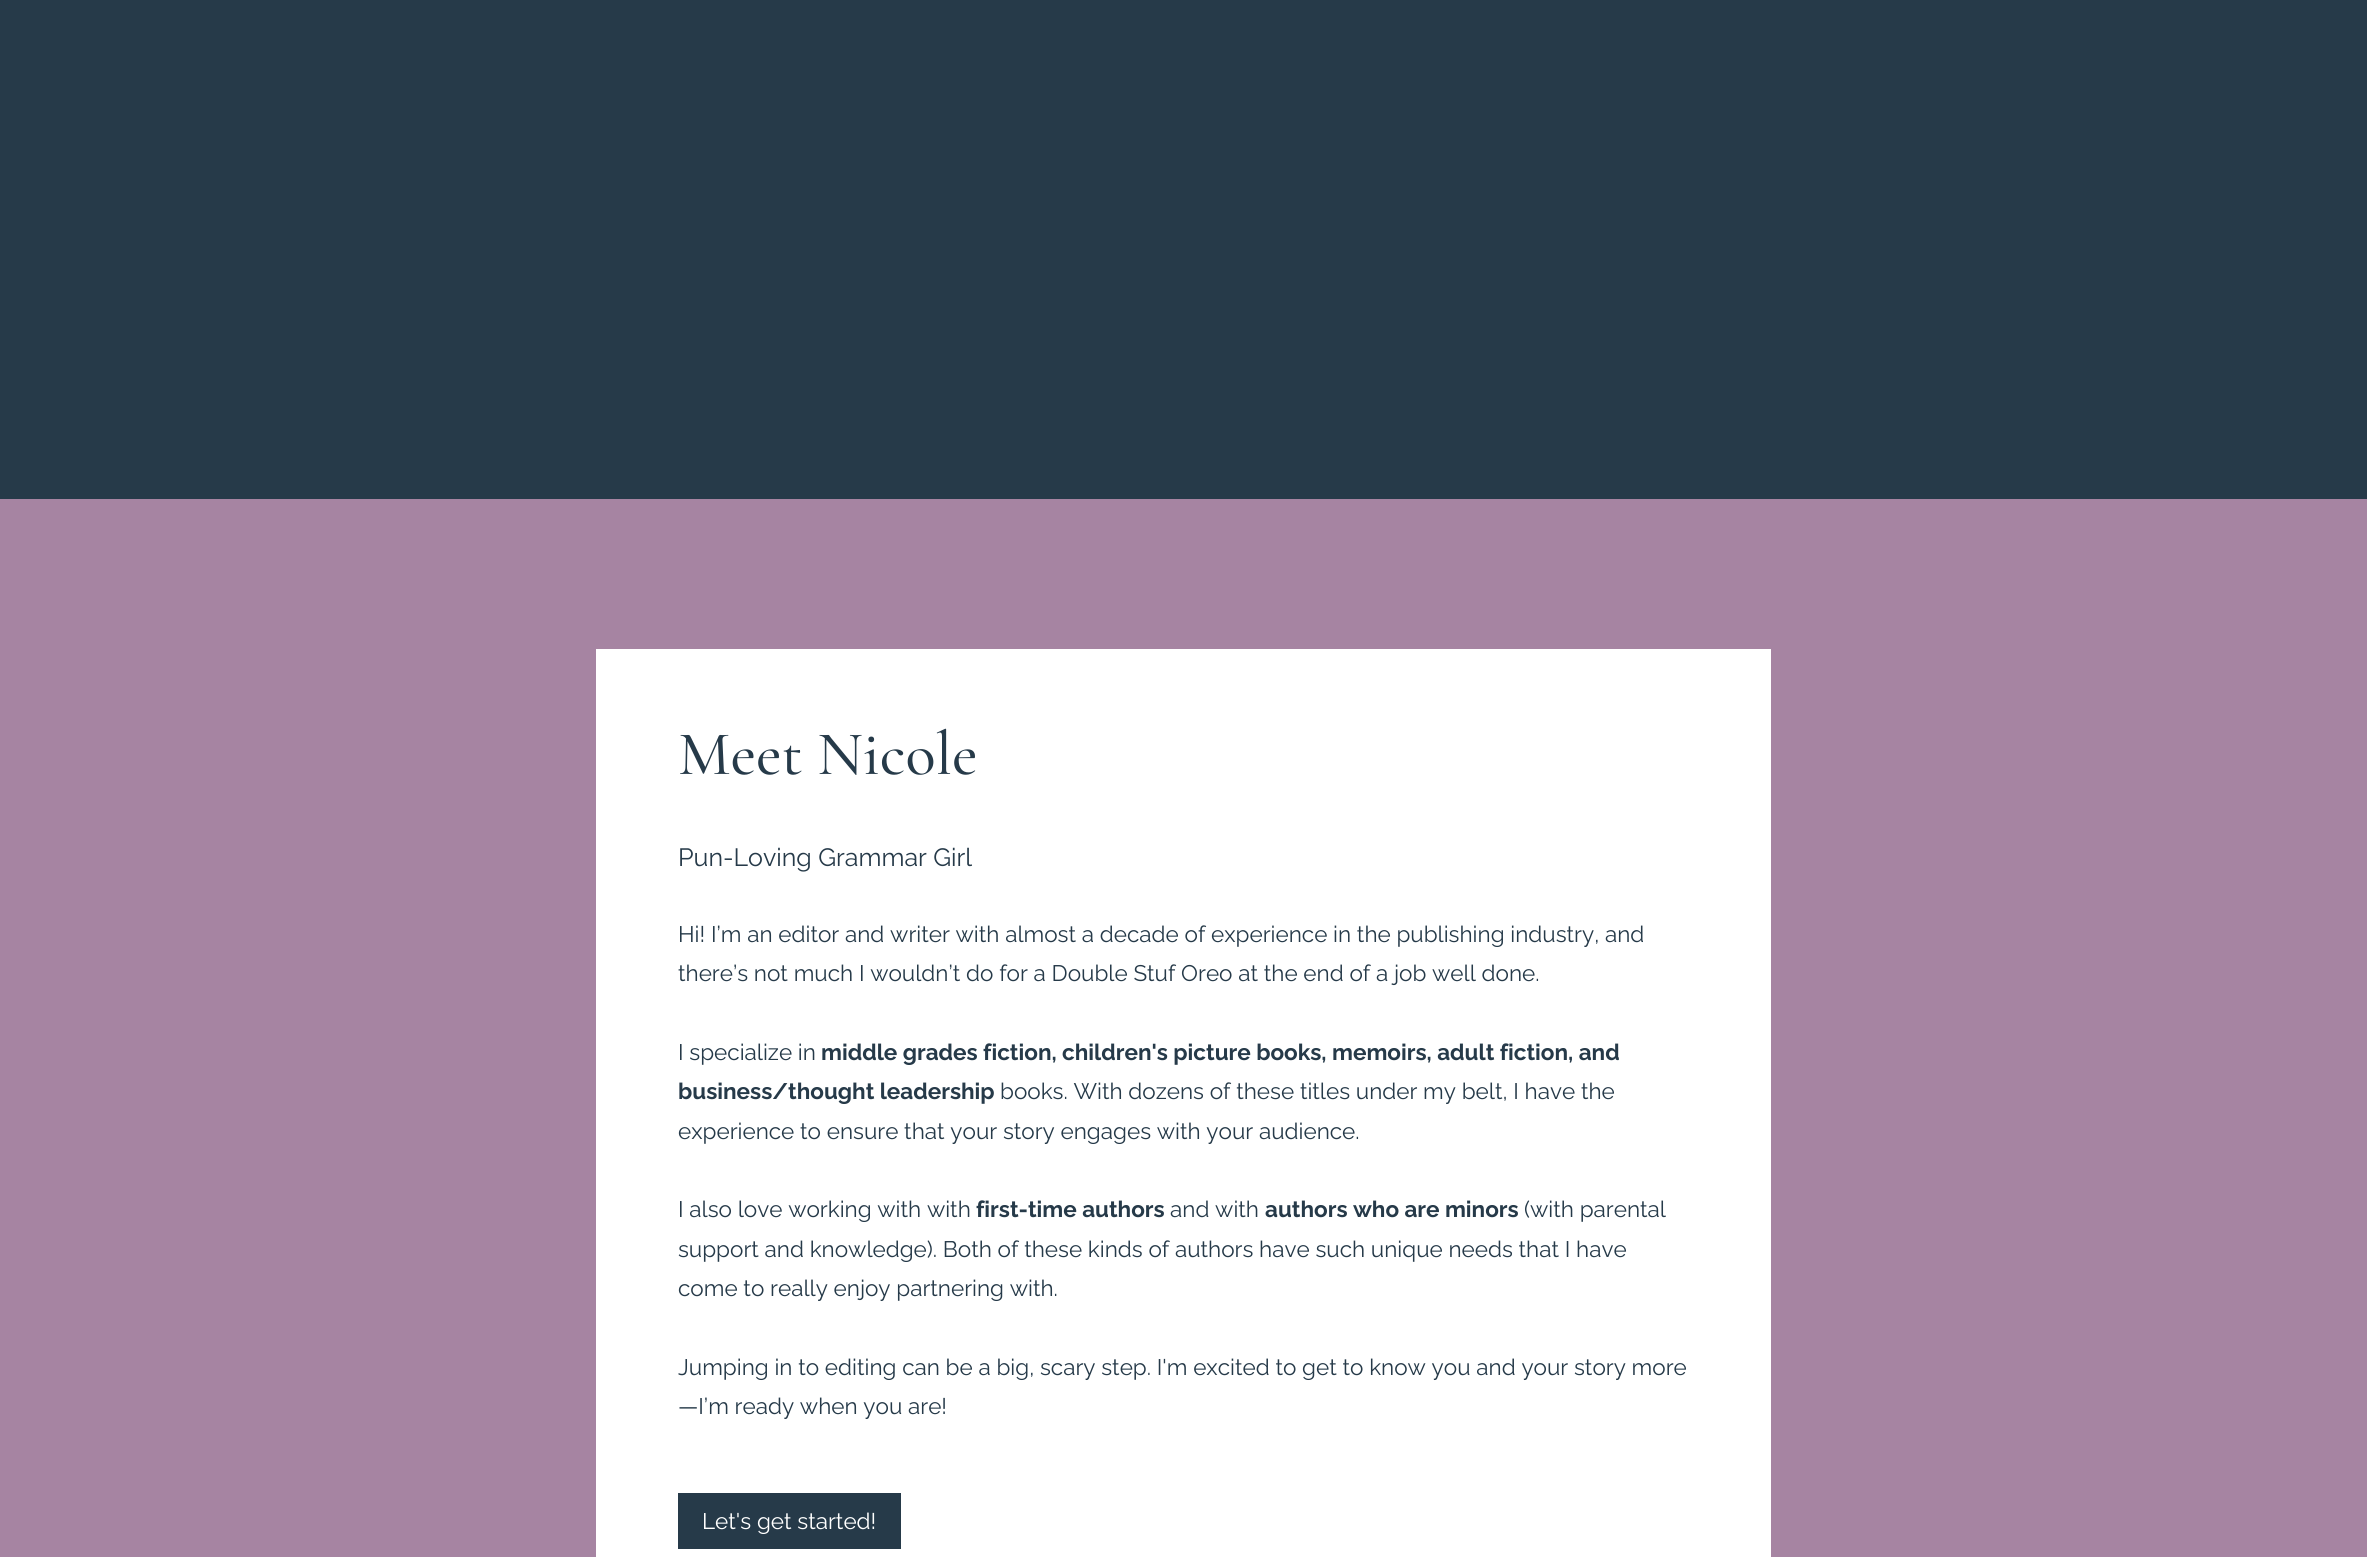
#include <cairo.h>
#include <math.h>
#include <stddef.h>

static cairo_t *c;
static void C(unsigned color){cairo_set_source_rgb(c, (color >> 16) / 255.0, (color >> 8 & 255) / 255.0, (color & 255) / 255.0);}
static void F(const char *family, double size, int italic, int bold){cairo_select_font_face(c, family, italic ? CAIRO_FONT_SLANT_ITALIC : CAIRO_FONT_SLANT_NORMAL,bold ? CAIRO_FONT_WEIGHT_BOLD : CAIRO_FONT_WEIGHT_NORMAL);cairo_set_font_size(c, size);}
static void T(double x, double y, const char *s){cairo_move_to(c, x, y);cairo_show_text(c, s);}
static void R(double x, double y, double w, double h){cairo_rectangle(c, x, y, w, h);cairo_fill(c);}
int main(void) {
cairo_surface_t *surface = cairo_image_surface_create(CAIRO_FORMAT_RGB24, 2367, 1557);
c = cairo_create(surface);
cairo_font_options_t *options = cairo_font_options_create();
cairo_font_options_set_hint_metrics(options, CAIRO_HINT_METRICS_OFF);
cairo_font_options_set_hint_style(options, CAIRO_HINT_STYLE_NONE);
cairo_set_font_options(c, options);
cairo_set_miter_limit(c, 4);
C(0x263a49);
cairo_paint(c);
C(0xa684a2);
R(0,499,2367,1058);
C(0xffffff);
R(596,649,1175,908);
F("Cormorant Garamond Medium",62.5,0,0);
C(0x263a49);
T(678,774,"Meet Nicole");
F("Raleway",25,0,0);
T(678,866,"Pun-Loving Grammar Girl");
F("Raleway",22.5,0,0);
T(678,942,"Hi! I’m an editor and writer with almost a decade of experience in the publishing industry, and");
T(678,981,"there’s not much I wouldn’t do for a Double Stuf Oreo at the end of a job well done.");
T(678,1060,"I specialize in");
F("Raleway",22.5,0,1);
T(821,1060,"middle grades fiction, children's picture books, memoirs, adult fiction, and");
T(678,1099,"business/thought leadership");
F("Raleway",22.5,0,0);
T(1000,1099,"books. With dozens of these titles under my belt, I have the");
T(678,1139,"experience to ensure that your story engages with your audience.");
T(678,1217,"I also love working with with");
F("Raleway",22.5,0,1);
T(976,1217,"first-time authors");
F("Raleway",22.5,0,0);
T(1170,1217,"and with");
F("Raleway",22.5,0,1);
T(1265,1217,"authors who are minors");
F("Raleway",22.5,0,0);
T(1524,1217,"(with parental");
T(678,1257,"support and knowledge). Both of these kinds of authors have such unique needs that I have");
T(678,1296,"come to really enjoy partnering with.");
T(678,1375,"Jumping in to editing can be a big, scary step. I'm excited to get to know you and your story more");
T(678,1414,"—I’m ready when you are!");
R(678,1493,223,56);
C(0xffffff);
T(702,1529,"Let's get started!");
cairo_surface_write_to_png(surface, "o.png");
cairo_font_options_destroy(options);
cairo_destroy(c);
cairo_surface_destroy(surface);
return 0;
}
